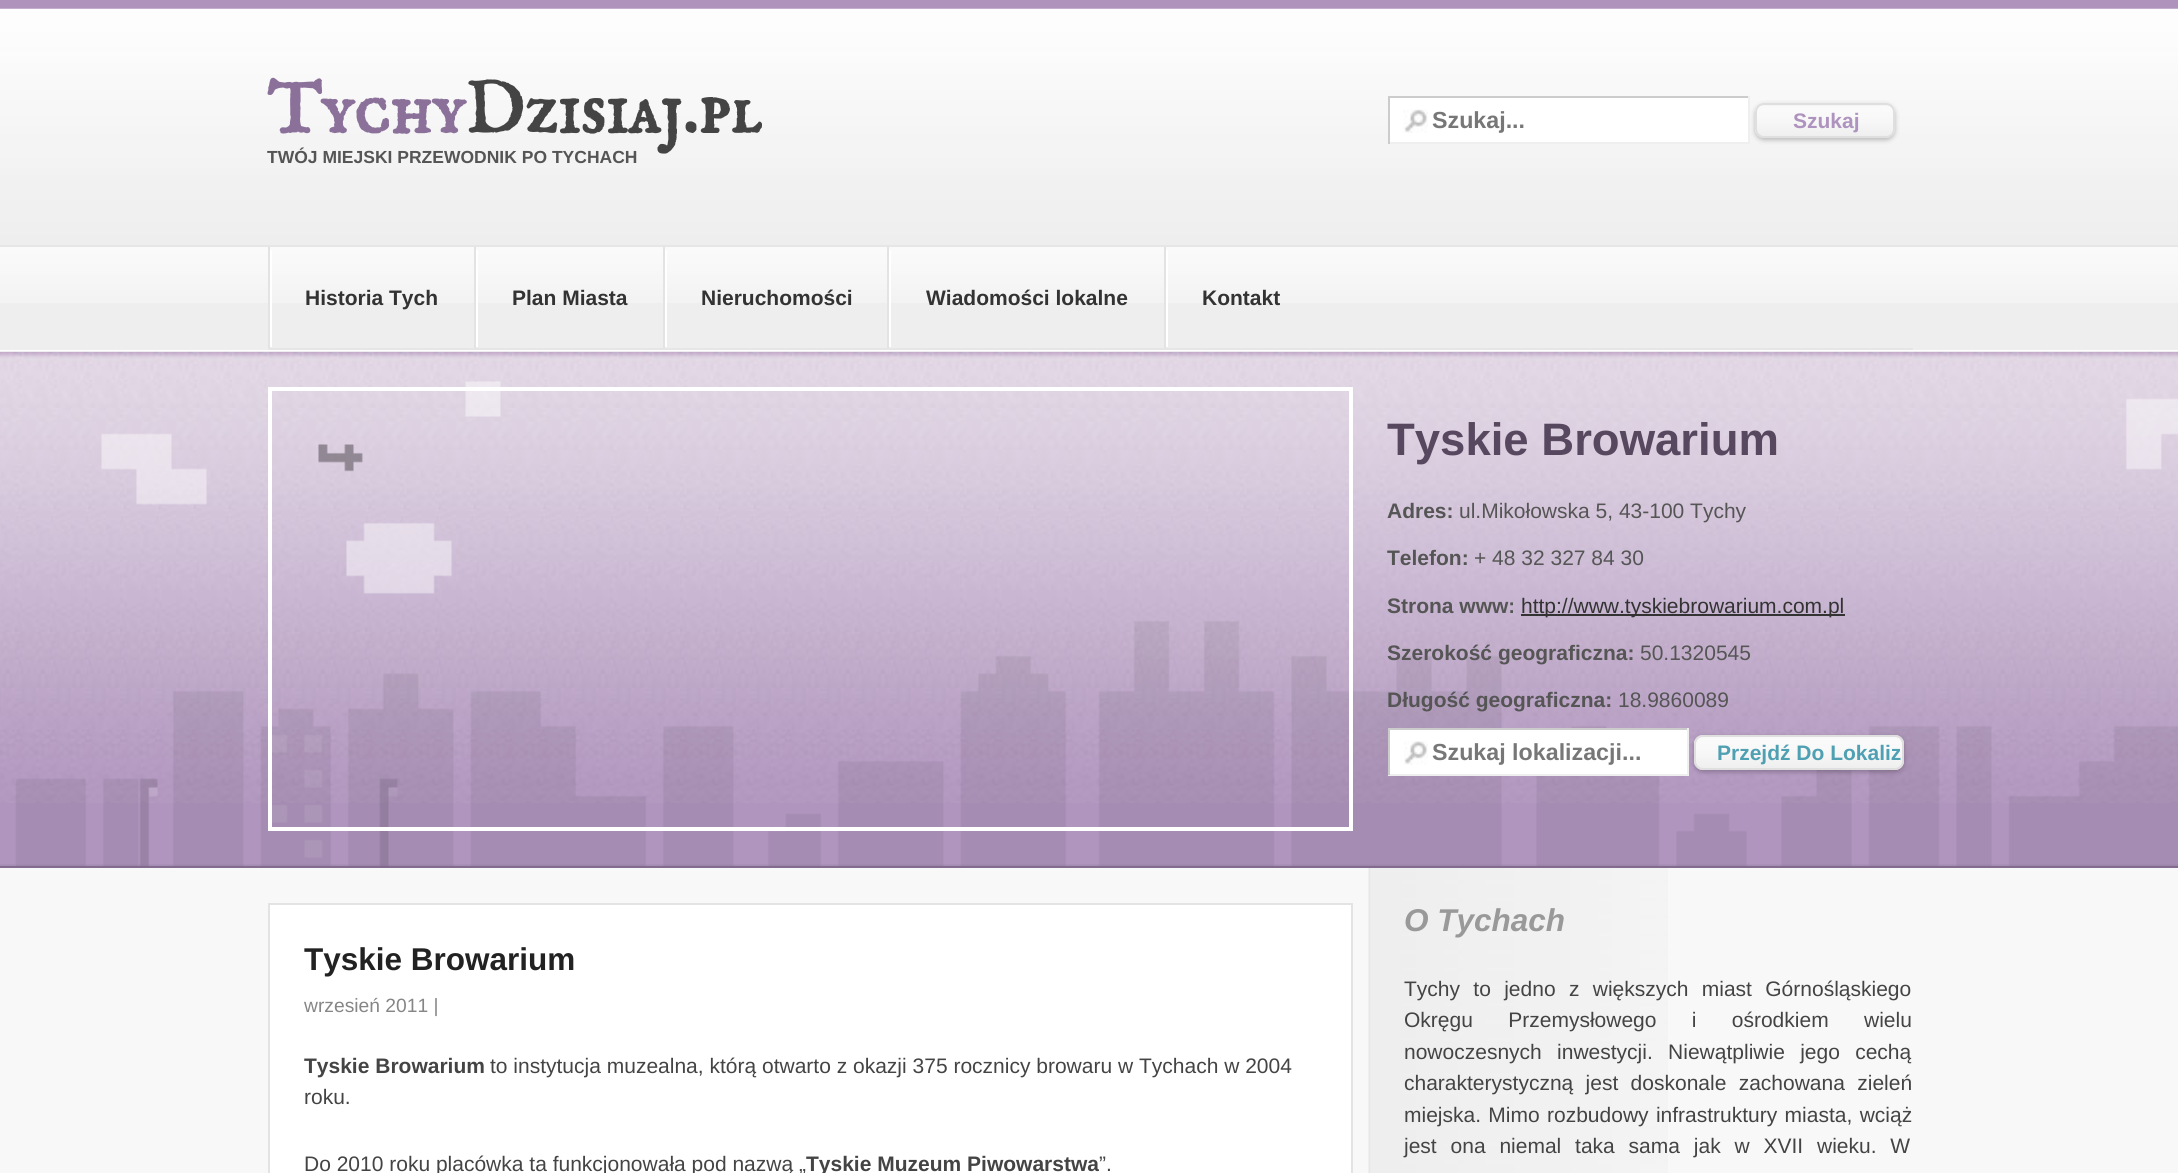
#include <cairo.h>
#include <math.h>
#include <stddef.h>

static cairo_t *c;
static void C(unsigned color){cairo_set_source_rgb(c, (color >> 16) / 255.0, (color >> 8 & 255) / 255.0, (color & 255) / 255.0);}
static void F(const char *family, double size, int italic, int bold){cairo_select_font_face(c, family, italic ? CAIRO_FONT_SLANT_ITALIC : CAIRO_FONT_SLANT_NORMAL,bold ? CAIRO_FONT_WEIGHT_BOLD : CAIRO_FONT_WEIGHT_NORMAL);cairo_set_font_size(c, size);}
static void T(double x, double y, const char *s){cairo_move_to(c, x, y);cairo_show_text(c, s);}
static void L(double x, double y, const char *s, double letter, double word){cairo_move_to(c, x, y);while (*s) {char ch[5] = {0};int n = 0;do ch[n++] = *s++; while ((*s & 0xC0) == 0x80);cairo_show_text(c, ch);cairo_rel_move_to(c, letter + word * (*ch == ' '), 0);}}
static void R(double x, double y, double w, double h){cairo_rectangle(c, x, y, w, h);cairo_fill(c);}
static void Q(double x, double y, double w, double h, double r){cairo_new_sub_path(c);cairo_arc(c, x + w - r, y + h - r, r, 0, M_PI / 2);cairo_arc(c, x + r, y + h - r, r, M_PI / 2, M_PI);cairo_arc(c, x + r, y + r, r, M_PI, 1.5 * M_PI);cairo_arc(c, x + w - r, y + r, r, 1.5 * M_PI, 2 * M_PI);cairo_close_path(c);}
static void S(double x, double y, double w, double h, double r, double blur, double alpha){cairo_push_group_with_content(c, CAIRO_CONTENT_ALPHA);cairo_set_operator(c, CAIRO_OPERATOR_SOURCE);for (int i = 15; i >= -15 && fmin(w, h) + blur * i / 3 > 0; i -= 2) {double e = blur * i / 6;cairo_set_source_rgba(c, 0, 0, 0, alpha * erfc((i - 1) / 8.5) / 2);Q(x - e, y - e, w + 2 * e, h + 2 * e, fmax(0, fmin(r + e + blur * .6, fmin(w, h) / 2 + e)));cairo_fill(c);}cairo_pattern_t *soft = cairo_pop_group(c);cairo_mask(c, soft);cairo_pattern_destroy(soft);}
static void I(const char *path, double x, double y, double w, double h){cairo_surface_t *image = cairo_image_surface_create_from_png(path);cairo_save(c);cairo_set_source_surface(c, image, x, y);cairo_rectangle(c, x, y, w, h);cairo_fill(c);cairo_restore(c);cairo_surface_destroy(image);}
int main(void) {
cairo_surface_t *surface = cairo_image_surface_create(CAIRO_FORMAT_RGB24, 2178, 1173);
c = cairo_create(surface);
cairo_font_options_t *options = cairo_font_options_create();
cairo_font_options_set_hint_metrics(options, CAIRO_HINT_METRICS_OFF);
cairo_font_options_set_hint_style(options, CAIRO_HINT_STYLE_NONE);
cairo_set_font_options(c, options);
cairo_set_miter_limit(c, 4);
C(0xf8f8f8);
cairo_paint(c);
I("1.png",1368,868,300,305);
C(0xaf93bc);
R(0,0,2178,9);
I("2.png",0,8,2178,237);
F("IM FELL English SC",73.5,0,1);
C(0x8b719a);
T(267,133,"Tychy");
C(0x444444);
T(465,133,"Dzisiaj.pl");
F("Liberation Sans",17.5,0,1);
C(0x555555);
T(267,163,"TWÓJ MIEJSKI PRZEWODNIK PO TYCHACH");
C(0xffffff);
R(1390,98,358,44);
I("3.png",1403,109,25,24);
C(0xcccccc);
R(1388,96,362,2);
C(0xefefef);
R(1748,96,2,48);
R(1388,142,362,2);
C(0xcccccc);
R(1388,96,2,48);
F("Liberation Sans",23.25,0,1);
C(0x777777);
T(1432,128,"Szukaj...");
C(0x000000);
S(1755,105,140,35,9,2.5,.25);
C(0xf9f9f9);
Q(1755,103,140,35,9);
cairo_fill(c);
I("4.png",1756,103,139,35);
Q(1756,104,138,33,8);
C(0xdfdfdf);
cairo_stroke(c);
F("Liberation Sans",21,0,1);
C(0xae93be);
T(1793,128,"Szukaj");
C(0xeeeeee);
R(0,303,2178,47);
I("5.png",0,247,2178,56);
C(0xe7e6e7);
R(0,245,2178,2);
C(0xffffff);
R(0,350,2178,2);
C(0xe7e6e7);
R(268,348,1645,2);
C(0xe3e3e3);
R(268,247,2,101);
C(0xffffff);
R(270,250,2,97);
C(0x333333);
T(305,305,"Historia Tych");
C(0xe3e3e3);
R(474,247,2,101);
C(0xffffff);
R(476,250,2,97);
C(0x333333);
T(512,305,"Plan Miasta");
C(0xe3e3e3);
R(663,247,2,101);
C(0xffffff);
R(665,250,2,97);
C(0x333333);
T(701,305,"Nieruchomości");
C(0xe3e3e3);
R(887,247,2,101);
C(0xffffff);
R(889,250,2,97);
C(0x333333);
T(926,305,"Wiadomości lokalne");
C(0xe3e3e3);
R(1164,247,2,101);
C(0xffffff);
R(1166,250,2,97);
C(0x333333);
T(1202,305,"Kontakt");
C(0xb095be);
R(0,803,2178,63);
I("6.png",0,351,2178,452);
C(0x856d92);
R(0,866,2178,2);
I("7.png",0,381,2178,486);
cairo_rectangle(c,270,389,1081,440);
C(0xffffff);
cairo_set_line_width(c,4);
cairo_stroke(c);
F("Liberation Sans",45.5,0,1);
C(0x57485f);
T(1387,455,"Tyskie Browarium");
F("Liberation Sans",21,0,1);
C(0x555555);
T(1387,518,"Adres:");
F("Liberation Sans",21,0,0);
T(1459,518,"ul.Mikołowska 5, 43-100 Tychy");
F("Liberation Sans",21,0,1);
T(1387,565,"Telefon:");
F("Liberation Sans",21,0,0);
T(1474,565,"+ 48 32 327 84 30");
F("Liberation Sans",21,0,1);
T(1387,613,"Strona www:");
C(0x333333);
R(1521,614,324,2);
F("Liberation Sans",21,0,0);
T(1521,613,"http://www.tyskiebrowarium.com.pl");
F("Liberation Sans",21,0,1);
C(0x555555);
T(1387,660,"Szerokość geograficzna:");
F("Liberation Sans",21,0,0);
T(1640,660,"50.1320545");
F("Liberation Sans",21,0,1);
T(1387,707,"Długość geograficzna:");
F("Liberation Sans",21,0,0);
T(1618,707,"18.9860089");
C(0xffffff);
R(1390,730,297,44);
I("8.png",1404,741,24,24);
C(0xcccccc);
R(1388,728,301,2);
C(0xefefef);
R(1687,728,2,47);
R(1388,774,301,2);
C(0xcccccc);
R(1388,728,2,47);
F("Liberation Sans",23.25,0,1);
C(0x777777);
T(1432,760,"Szukaj lokalizacji...");
C(0x000000);
S(1694,737,210,35,9,2.5,.25);
C(0xf9f9f9);
Q(1694,735,210,35,9);
cairo_fill(c);
I("9.png",1694,735,210,35);
Q(1695,736,208,33,8);
C(0xdfdfdf);
cairo_set_line_width(c,2);
cairo_stroke(c);
F("Liberation Sans",21,0,1);
C(0x4fa0b3);
T(1717,760,"Przejdź Do Lokaliz");
C(0xffffff);
cairo_rectangle(c,269,904,1083,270);
cairo_fill_preserve(c);
C(0xe3e3e3);
cairo_stroke(c);
F("Liberation Sans",31.5,0,1);
C(0x222222);
T(304,970,"Tyskie Browarium");
F("Liberation Sans",19.25,0,0);
C(0x868686);
T(304,1012,"wrzesień 2011 |");
F("Liberation Sans",21,0,1);
C(0x444444);
T(304,1073,"Tyskie Browarium");
F("Liberation Sans",21,0,0);
T(490,1073,"to instytucja muzealna, którą otwarto z okazji 375 rocznicy browaru w Tychach w 2004");
T(304,1104,"roku.");
T(304,1171,"Do 2010 roku placówka ta funkcjonowała pod nazwą „");
F("Liberation Sans",21,0,1);
T(806,1171,"Tyskie Muzeum Piwowarstwa");
F("Liberation Sans",21,0,0);
T(1099,1171,"”.");
F("Liberation Sans",31.5,1,1);
C(0x999999);
T(1404,931,"O Tychach");
F("Liberation Sans",21,0,0);
C(0x444444);
L(1404,996,"Tychy to jedno z większych miast Górnośląskiego",0,7.5);
L(1404,1027,"Okręgu Przemysłowego i ośrodkiem wielu",0,29.5);
L(1404,1059,"nowoczesnych inwestycji. Niewątpliwie jego cechą",0,9.5);
L(1404,1090,"charakterystyczną jest doskonale zachowana zieleń",0,6.5);
L(1404,1122,"miejska. Mimo rozbudowy infrastruktury miasta, wciąż",0,1.5);
L(1404,1153,"jest ona niemal taka sama jak w XVII wieku. W",0,8);
cairo_surface_write_to_png(surface, "o.png");
cairo_font_options_destroy(options);
cairo_destroy(c);
cairo_surface_destroy(surface);
return 0;
}
